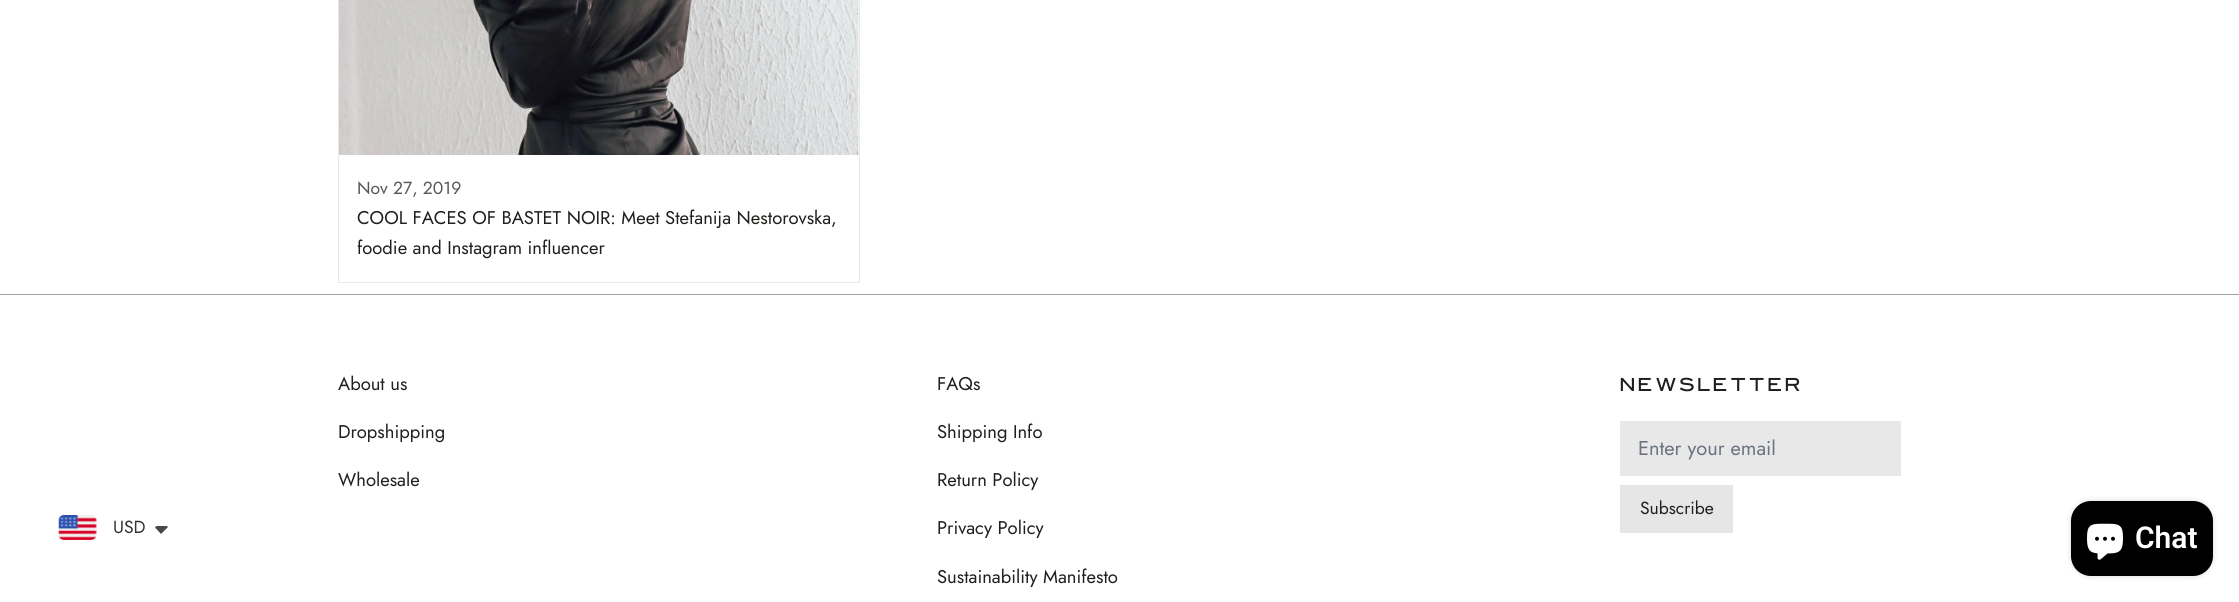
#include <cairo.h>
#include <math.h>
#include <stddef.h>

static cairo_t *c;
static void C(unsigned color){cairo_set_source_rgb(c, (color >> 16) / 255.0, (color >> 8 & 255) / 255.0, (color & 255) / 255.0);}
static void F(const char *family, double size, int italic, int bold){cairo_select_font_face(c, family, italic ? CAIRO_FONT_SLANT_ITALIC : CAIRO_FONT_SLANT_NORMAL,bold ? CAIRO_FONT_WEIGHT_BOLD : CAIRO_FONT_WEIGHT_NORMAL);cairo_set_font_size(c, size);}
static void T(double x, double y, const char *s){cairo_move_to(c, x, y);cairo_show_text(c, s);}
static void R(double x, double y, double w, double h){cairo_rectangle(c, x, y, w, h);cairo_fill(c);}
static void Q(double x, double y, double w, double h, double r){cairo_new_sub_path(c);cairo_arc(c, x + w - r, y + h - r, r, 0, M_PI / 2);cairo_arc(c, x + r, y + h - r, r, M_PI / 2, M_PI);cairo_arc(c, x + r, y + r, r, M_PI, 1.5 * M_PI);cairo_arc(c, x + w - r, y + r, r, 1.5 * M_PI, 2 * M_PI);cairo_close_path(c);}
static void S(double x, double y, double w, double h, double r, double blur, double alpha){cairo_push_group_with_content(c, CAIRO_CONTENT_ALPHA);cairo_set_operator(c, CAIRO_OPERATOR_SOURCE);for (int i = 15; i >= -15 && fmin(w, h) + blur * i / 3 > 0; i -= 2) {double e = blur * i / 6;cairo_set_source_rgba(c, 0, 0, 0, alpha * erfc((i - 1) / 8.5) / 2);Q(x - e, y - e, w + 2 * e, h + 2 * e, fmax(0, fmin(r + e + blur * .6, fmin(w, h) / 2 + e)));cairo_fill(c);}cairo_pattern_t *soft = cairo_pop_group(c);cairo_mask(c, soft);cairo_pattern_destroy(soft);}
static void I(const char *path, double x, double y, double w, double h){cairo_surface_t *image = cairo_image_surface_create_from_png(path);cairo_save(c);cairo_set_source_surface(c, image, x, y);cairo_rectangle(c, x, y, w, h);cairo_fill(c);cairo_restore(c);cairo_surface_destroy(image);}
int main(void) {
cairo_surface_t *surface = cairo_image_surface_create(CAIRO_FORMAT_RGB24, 2239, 602);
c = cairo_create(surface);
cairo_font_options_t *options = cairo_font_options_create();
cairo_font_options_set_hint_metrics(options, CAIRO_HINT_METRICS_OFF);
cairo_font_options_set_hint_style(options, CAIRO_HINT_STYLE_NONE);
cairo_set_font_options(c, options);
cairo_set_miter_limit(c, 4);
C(0xffffff);
cairo_paint(c);
cairo_rectangle(c,338.5,-.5,521,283);
C(0xe8e8e8);
cairo_set_line_width(c,1);
cairo_stroke(c);
I("1.png",339,0,520,155);
F("Jost",17.5,0,0);
C(0x565855);
T(357,194,"Nov 27, 2019");
F("Jost",18.4,0,0);
C(0x1e201c);
T(357,224,"COOL FACES OF BASTET NOIR: Meet Stefanija Nestorovska,");
T(357,254,"foodie and Instagram influencer");
I("2.png",58,515,39,25);
F("Jost",17.5,0,0);
C(0x333333);
T(113,533,"USD");
C(0x474942);
cairo_new_path(c);
cairo_move_to(c,155,527.5);
cairo_line_to(c,156.5,526);
cairo_line_to(c,166.5,526);
cairo_line_to(c,168,527);
cairo_line_to(c,161,534);
cairo_close_path(c);
cairo_fill(c);
C(0xa3a3a3);
R(0,294,2239,1);
F("Jost",18.4,0,0);
C(0x1e201c);
T(338,390,"About us");
T(338,438,"Dropshipping");
T(338,486,"Wholesale");
T(937,390,"FAQs");
T(937,438,"Shipping Info");
T(937,486,"Return Policy");
T(937,534,"Privacy Policy");
T(937,583,"Sustainability Manifesto");
F("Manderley",20.25,0,0);
T(1620,391,"Newsletter");
C(0xe8e8e8);
R(1620,421,281,55);
F("Jost",20,0,0);
C(0x6b7280);
T(1638,455,"Enter your email");
C(0xe6e6e6);
R(1620,485,113,48);
F("Jost",17.5,0,0);
C(0x1e201c);
T(1640,514,"Subscribe");
C(0x000000);
S(2071,501,142,75,20,3,.15);
C(0x000000);
Q(2071,501,142,75,20);
cairo_fill(c);
I("3.png",2087,523,36,37);
F("Roboto SemiBold",30,0,0);
C(0xffffff);
T(2135,548,"Chat");
cairo_surface_write_to_png(surface, "o.png");
cairo_font_options_destroy(options);
cairo_destroy(c);
cairo_surface_destroy(surface);
return 0;
}
